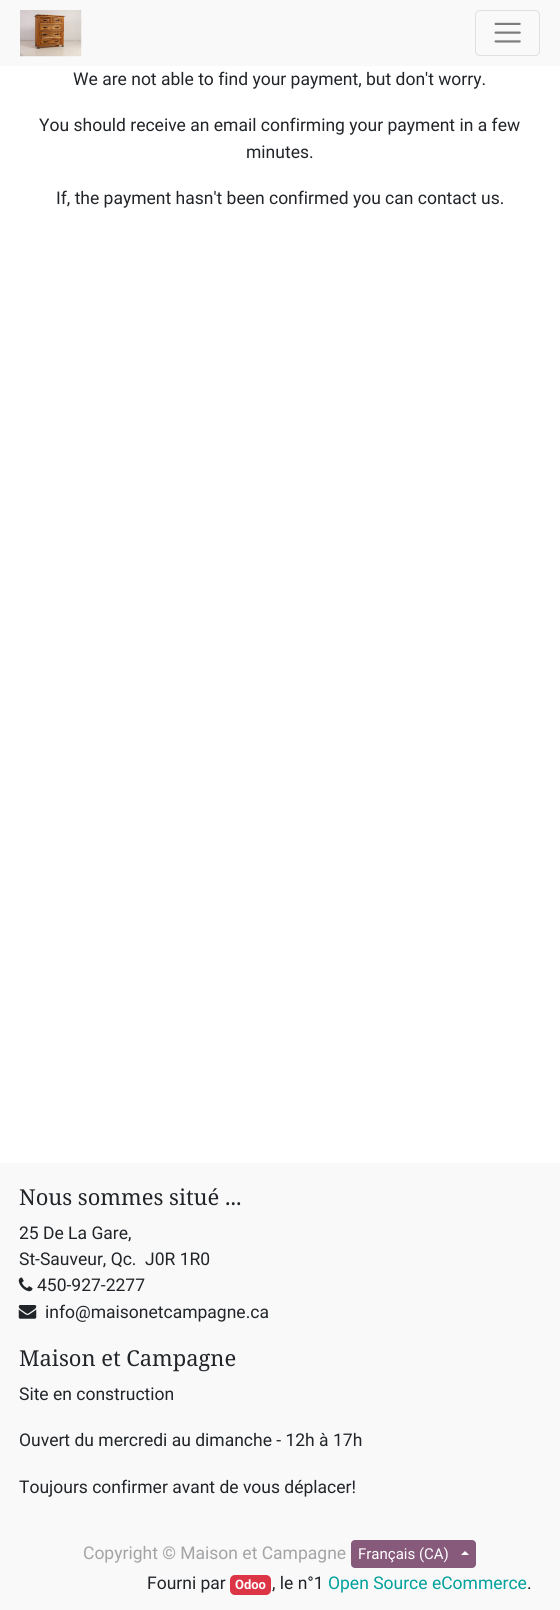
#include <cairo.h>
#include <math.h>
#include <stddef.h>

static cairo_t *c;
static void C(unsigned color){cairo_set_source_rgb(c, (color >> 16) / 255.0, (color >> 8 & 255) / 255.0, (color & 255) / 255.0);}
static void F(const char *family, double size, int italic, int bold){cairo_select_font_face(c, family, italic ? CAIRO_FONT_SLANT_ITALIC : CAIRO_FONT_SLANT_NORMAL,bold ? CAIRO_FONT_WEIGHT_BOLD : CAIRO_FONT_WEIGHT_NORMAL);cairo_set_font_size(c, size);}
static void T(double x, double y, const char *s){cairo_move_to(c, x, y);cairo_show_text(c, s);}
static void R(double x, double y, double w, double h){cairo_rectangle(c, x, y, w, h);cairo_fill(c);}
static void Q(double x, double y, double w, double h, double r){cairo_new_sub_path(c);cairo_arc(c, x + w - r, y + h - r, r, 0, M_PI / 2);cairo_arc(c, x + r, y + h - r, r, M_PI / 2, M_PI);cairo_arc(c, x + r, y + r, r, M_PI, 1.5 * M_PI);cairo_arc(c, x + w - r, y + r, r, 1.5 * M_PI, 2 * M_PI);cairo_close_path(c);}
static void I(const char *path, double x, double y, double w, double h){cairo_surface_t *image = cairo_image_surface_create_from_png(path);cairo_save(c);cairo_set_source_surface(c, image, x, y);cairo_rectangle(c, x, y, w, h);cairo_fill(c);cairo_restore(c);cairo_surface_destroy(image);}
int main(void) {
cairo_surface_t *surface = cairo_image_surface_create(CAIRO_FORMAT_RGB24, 560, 1610);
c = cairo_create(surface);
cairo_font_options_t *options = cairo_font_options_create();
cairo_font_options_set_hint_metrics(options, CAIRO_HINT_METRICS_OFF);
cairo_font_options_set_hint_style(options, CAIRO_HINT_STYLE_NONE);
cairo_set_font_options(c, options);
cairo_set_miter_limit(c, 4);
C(0xffffff);
cairo_paint(c);
C(0xf9f9f9);
R(0,0,560,66);
I("1.png",20,10,62,47);
Q(475.5,10.5,64,45,4.5);
C(0xe0e0e0);
cairo_set_line_width(c,1);
cairo_stroke(c);
I("2.png",494,22,27,21);
F("Roboto",17.5,0,0);
C(0x212529);
T(73,85,"We are not able to find your payment, but don't worry.");
T(39,131,"You should receive an email confirming your payment in a few");
T(246,158,"minutes.");
T(56,204,"If, the payment hasn't been confirmed you can contact us.");
C(0xf9f9f9);
R(0,1163,560,447);
F("Noto Serif",21.9,0,0);
C(0x212529);
T(19,1205,"Nous sommes situé ...");
F("Roboto",17.5,0,0);
T(19,1239,"25 De La Gare,");
T(19,1265,"St-Sauveur, Qc.  J0R 1R0");
I("3.png",18,1277,15,15);
T(37,1291,"450-927-2277");
I("4.png",18,1305,19,14);
T(45,1318,"info@maisonetcampagne.ca");
F("Noto Serif",21.9,0,0);
T(19,1366,"Maison et Campagne");
F("Roboto",17.5,0,0);
T(19,1400,"Site en construction");
T(19,1446,"Ouvert du mercredi au dimanche - 12h à 17h");
T(19,1493,"Toujours confirmer avant de vous déplacer!");
C(0xa3a4a6);
T(83,1559,"Copyright © Maison et Campagne");
C(0x875a7b);
Q(351.5,1540.5,124,27,3.5);
cairo_fill_preserve(c);
cairo_stroke(c);
F("Roboto",15,0,0);
C(0xffffff);
T(358,1559,"Français (CA)");
cairo_new_path(c);
cairo_move_to(c,469,1555);
cairo_line_to(c,461,1555);
cairo_line_to(c,465,1551);
cairo_close_path(c);
cairo_fill(c);
F("Roboto",17.5,0,0);
C(0x212529);
T(147,1589,"Fourni par");
C(0xdc3545);
Q(230,1575,41,20,5);
cairo_fill(c);
F("Roboto",13,0,1);
C(0xffffff);
T(235,1589,"Odoo");
F("Roboto",17.5,0,0);
C(0x212529);
T(272,1589,", le n°1");
C(0x00a09d);
T(328,1589,"Open Source eCommerce");
C(0x212529);
T(527,1589,".");
cairo_surface_write_to_png(surface, "o.png");
cairo_font_options_destroy(options);
cairo_destroy(c);
cairo_surface_destroy(surface);
return 0;
}
